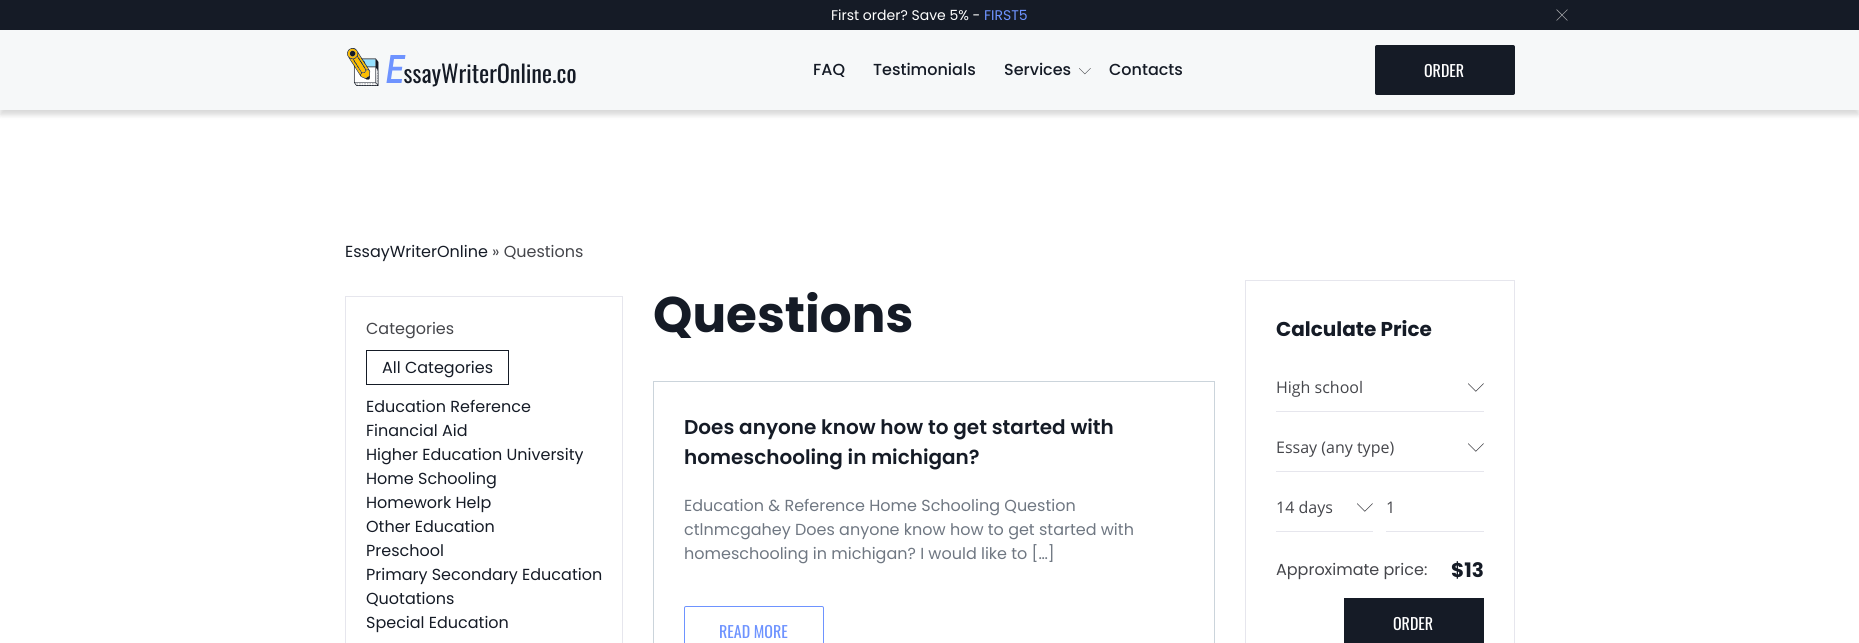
#include <cairo.h>
#include <math.h>
#include <stddef.h>

static cairo_t *c;
static void C(unsigned color){cairo_set_source_rgb(c, (color >> 16) / 255.0, (color >> 8 & 255) / 255.0, (color & 255) / 255.0);}
static void F(const char *family, double size, int italic, int bold){cairo_select_font_face(c, family, italic ? CAIRO_FONT_SLANT_ITALIC : CAIRO_FONT_SLANT_NORMAL,bold ? CAIRO_FONT_WEIGHT_BOLD : CAIRO_FONT_WEIGHT_NORMAL);cairo_set_font_size(c, size);}
static void T(double x, double y, const char *s){cairo_move_to(c, x, y);cairo_show_text(c, s);}
static void R(double x, double y, double w, double h){cairo_rectangle(c, x, y, w, h);cairo_fill(c);}
static void Q(double x, double y, double w, double h, double r){cairo_new_sub_path(c);cairo_arc(c, x + w - r, y + h - r, r, 0, M_PI / 2);cairo_arc(c, x + r, y + h - r, r, M_PI / 2, M_PI);cairo_arc(c, x + r, y + r, r, M_PI, 1.5 * M_PI);cairo_arc(c, x + w - r, y + r, r, 1.5 * M_PI, 2 * M_PI);cairo_close_path(c);}
static void S(double x, double y, double w, double h, double r, double blur, double alpha){cairo_push_group_with_content(c, CAIRO_CONTENT_ALPHA);cairo_set_operator(c, CAIRO_OPERATOR_SOURCE);for (int i = 15; i >= -15 && fmin(w, h) + blur * i / 3 > 0; i -= 2) {double e = blur * i / 6;cairo_set_source_rgba(c, 0, 0, 0, alpha * erfc((i - 1) / 8.5) / 2);Q(x - e, y - e, w + 2 * e, h + 2 * e, fmax(0, fmin(r + e + blur * .6, fmin(w, h) / 2 + e)));cairo_fill(c);}cairo_pattern_t *soft = cairo_pop_group(c);cairo_mask(c, soft);cairo_pattern_destroy(soft);}
static void I(const char *path, double x, double y, double w, double h){cairo_surface_t *image = cairo_image_surface_create_from_png(path);cairo_save(c);cairo_set_source_surface(c, image, x, y);cairo_rectangle(c, x, y, w, h);cairo_fill(c);cairo_restore(c);cairo_surface_destroy(image);}
int main(void) {
cairo_surface_t *surface = cairo_image_surface_create(CAIRO_FORMAT_RGB24, 1859, 643);
c = cairo_create(surface);
cairo_font_options_t *options = cairo_font_options_create();
cairo_font_options_set_hint_metrics(options, CAIRO_HINT_METRICS_OFF);
cairo_font_options_set_hint_style(options, CAIRO_HINT_STYLE_NONE);
cairo_set_font_options(c, options);
cairo_set_miter_limit(c, 4);
C(0xffffff);
cairo_paint(c);
C(0x151b26);
R(0,0,1859,30);
F("Poppins",14,0,0);
C(0xffffff);
T(831,20,"First order? Save 5% -");
C(0x6e93ff);
T(984,20,"FIRST5");
I("1.png",1556,9,12,12);
C(0x000000);
S(0,35,1859,80,0,2.5,.15);
C(0xf6f8f9);
R(0,30,1859,80);
I("2.png",347,48,229,39);
F("Poppins Medium",16,0,0);
C(0x151b26);
T(813,75,"FAQ");
T(873,75,"Testimonials");
T(1004,75,"Services");
I("3.png",1079,68,12,7);
T(1109,75,"Contacts");
Q(1375.5,45.5,139,49,1.5);
cairo_fill_preserve(c);
cairo_set_line_width(c,1);
cairo_stroke(c);
F("Oswald",16,0,0);
C(0xffffff);
T(1424,77,"ORDER");
F("Poppins",16,0,0);
C(0x151b26);
T(345,257,"EssayWriterOnline");
C(0x45464b);
T(492,257,"» Questions");
cairo_rectangle(c,345.5,296.5,277,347);
C(0xe6e6ed);
cairo_stroke(c);
C(0x45464b);
T(366,334,"Categories");
cairo_rectangle(c,366.5,350.5,142,34);
C(0x151b26);
cairo_stroke(c);
T(382,373,"All Categories");
T(366,412,"Education Reference");
T(366,436,"Financial Aid");
T(366,460,"Higher Education University");
T(366,484,"Home Schooling");
T(366,508,"Homework Help");
T(366,532,"Other Education");
T(366,556,"Preschool");
T(366,580,"Primary Secondary Education");
T(366,604,"Quotations");
T(366,628,"Special Education");
F("Poppins",50,0,1);
T(653,332,"Questions");
cairo_rectangle(c,653.5,381.5,561,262);
C(0xcbd4db);
cairo_stroke(c);
F("Poppins SemiBold",20,0,0);
C(0x151b26);
T(684,434,"Does anyone know how to get started with");
T(684,464,"homeschooling in michigan?");
F("Poppins",16,0,0);
C(0x6f7782);
T(684,511,"Education & Reference Home Schooling Question");
T(684,535,"ctlnmcgahey Does anyone know how to get started with");
T(684,559,"homeschooling in michigan? I would like to […]");
Q(684.5,606.5,139,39,1.5);
C(0x6e93ff);
cairo_stroke(c);
F("Oswald",16,0,0);
T(719,638,"READ MORE");
cairo_rectangle(c,1245.5,280.5,269,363);
C(0xe6e6ed);
cairo_stroke(c);
F("Poppins",20,0,1);
C(0x151b26);
T(1276,336,"Calculate Price");
C(0xe6e6ed);
R(1276,411,208,1);
F("Open Sans",16,0,0);
C(0x45464b);
T(1276,393,"High school");
I("4.png",1468,383,16,9);
C(0xe6e6ed);
R(1276,471,208,1);
C(0x45464b);
T(1276,453,"Essay (any type)");
I("4.png",1468,443,16,9);
C(0xe6e6ed);
R(1276,531,97,1);
C(0x45464b);
T(1276,513,"14 days");
I("4.png",1357,503,16,9);
C(0xe6e6ed);
R(1386,531,98,1);
C(0x45464b);
T(1386,513,"1");
F("Poppins",16,0,0);
T(1276,575,"Approximate price:");
F("Poppins",20,0,1);
C(0x151b26);
T(1451,577,"$13");
R(1344,598,140,45);
F("Oswald",16,0,0);
C(0xffffff);
T(1393,630,"ORDER");
cairo_surface_write_to_png(surface, "o.png");
cairo_font_options_destroy(options);
cairo_destroy(c);
cairo_surface_destroy(surface);
return 0;
}
